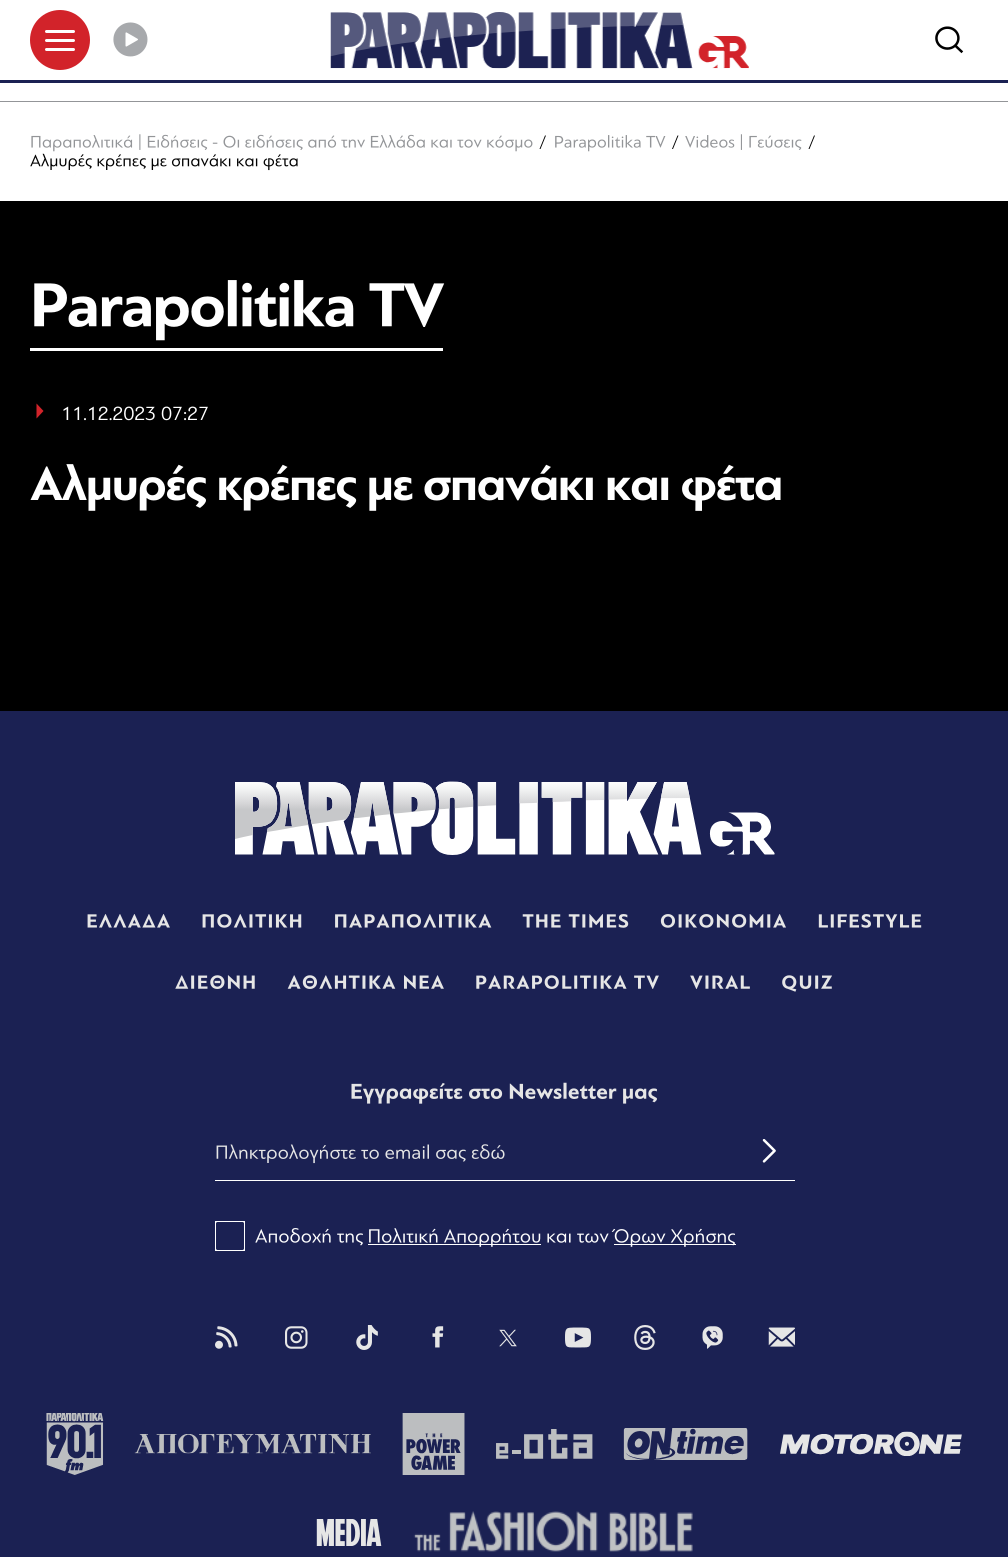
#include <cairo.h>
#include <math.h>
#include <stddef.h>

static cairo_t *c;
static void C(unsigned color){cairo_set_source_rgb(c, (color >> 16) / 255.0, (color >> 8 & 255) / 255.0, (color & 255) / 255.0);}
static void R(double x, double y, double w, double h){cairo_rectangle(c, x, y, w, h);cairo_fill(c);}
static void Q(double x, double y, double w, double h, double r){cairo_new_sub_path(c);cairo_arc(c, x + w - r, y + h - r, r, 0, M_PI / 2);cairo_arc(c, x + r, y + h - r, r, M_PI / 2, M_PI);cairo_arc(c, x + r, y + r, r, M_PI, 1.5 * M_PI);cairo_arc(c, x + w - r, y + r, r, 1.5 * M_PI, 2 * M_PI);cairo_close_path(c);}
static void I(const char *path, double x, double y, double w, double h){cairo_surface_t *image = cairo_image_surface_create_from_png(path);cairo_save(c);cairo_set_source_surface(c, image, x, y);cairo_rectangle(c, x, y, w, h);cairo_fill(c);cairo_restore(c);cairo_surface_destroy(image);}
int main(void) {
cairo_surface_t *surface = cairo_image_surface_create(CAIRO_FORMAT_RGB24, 1008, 1557);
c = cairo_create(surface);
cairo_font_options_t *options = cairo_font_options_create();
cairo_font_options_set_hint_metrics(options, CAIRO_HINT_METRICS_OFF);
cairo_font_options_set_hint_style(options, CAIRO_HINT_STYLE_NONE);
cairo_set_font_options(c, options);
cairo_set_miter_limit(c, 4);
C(0xffffff);
cairo_paint(c);
C(0x1b2153);
R(0,80,1008,3);
C(0xd2232a);
cairo_arc(c,60,40,30,0,2 * M_PI);
cairo_fill(c);
C(0xffffff);
Q(45,30,30,3,1.5);
cairo_fill(c);
Q(45,39,30,3,1.5);
cairo_fill(c);
Q(45,48,30,3,1.5);
cairo_fill(c);
I("1.png",113,22,35,35);
I("2.png",330,12,419,57);
I("3.png",935,26,29,28);
C(0x939598);
R(0,101,1008,1);
I("4.png",31,134,502,18);
C(0x000000);
cairo_new_path(c);
cairo_move_to(c,546,135.5);
cairo_line_to(c,540.5,149);
cairo_line_to(c,539.5,149);
cairo_line_to(c,545,135.5);
cairo_close_path(c);
cairo_fill(c);
I("5.png",555,135,111,17);
cairo_new_path(c);
cairo_move_to(c,678.5,135.5);
cairo_line_to(c,673,149);
cairo_line_to(c,672,149);
cairo_line_to(c,677.5,135.5);
cairo_close_path(c);
cairo_fill(c);
I("6.png",685,134,117,16);
cairo_new_path(c);
cairo_move_to(c,815,135.5);
cairo_line_to(c,809.5,149);
cairo_line_to(c,808.5,149);
cairo_line_to(c,814,135.5);
cairo_close_path(c);
cairo_fill(c);
I("7.png",30,153,268,18);
R(0,201,1008,510);
I("8.png",34,280,411,61);
C(0xffffff);
R(30,348,413,3);
C(0xd2232a);
cairo_new_path(c);
cairo_move_to(c,43.5,411);
cairo_line_to(c,36.5,403.5);
cairo_line_to(c,36.5,418.5);
cairo_close_path(c);
cairo_fill(c);
I("9.png",63,406,145,15);
I("10.png",30,464,751,47);
C(0x1b2153);
R(0,711,1008,846);
I("11.png",235,781,540,74);
I("12.png",87,914,83,14);
I("13.png",202,914,100,14);
I("14.png",335,914,157,14);
I("15.png",522,914,107,14);
I("16.png",660,914,126,14);
I("17.png",818,914,104,14);
I("18.png",175,975,80,14);
I("19.png",287,975,157,14);
I("20.png",476,975,183,14);
I("21.png",690,975,60,14);
I("22.png",782,975,50,17);
I("23.png",351,1082,306,22);
I("24.png",762,1139,14,24);
C(0xffffff);
R(215,1180,580,1);
I("25.png",216,1144,289,20);
cairo_rectangle(c,215.5,1221.5,29,29);
cairo_set_line_width(c,1);
cairo_stroke(c);
Q(215.5,1221.5,29,29,2);
cairo_stroke(c);
I("26.png",255,1228,108,18);
R(368,1244,173,1);
I("27.png",369,1228,172,19);
I("28.png",547,1233,62,10);
R(614,1244,122,1);
I("29.png",611,1228,124,19);
I("30.png",215,1326,23,23);
I("31.png",285,1326,23,23);
I("32.png",356,1325,22,25);
I("33.png",432,1326,12,22);
I("34.png",499,1329,18,18);
I("35.png",565,1327,26,21);
I("36.png",634,1325,22,25);
I("37.png",702,1326,21,23);
I("38.png",768,1327,27,20);
I("39.png",46,1413,58,62);
I("40.png",134,1434,237,20);
I("41.png",402,1413,63,62);
I("42.png",496,1429,97,30);
I("43.png",623,1428,125,32);
I("44.png",780,1431,182,25);
I("45.png",316,1519,66,27);
I("46.png",413,1511,280,41);
cairo_surface_write_to_png(surface, "o.png");
cairo_font_options_destroy(options);
cairo_destroy(c);
cairo_surface_destroy(surface);
return 0;
}
